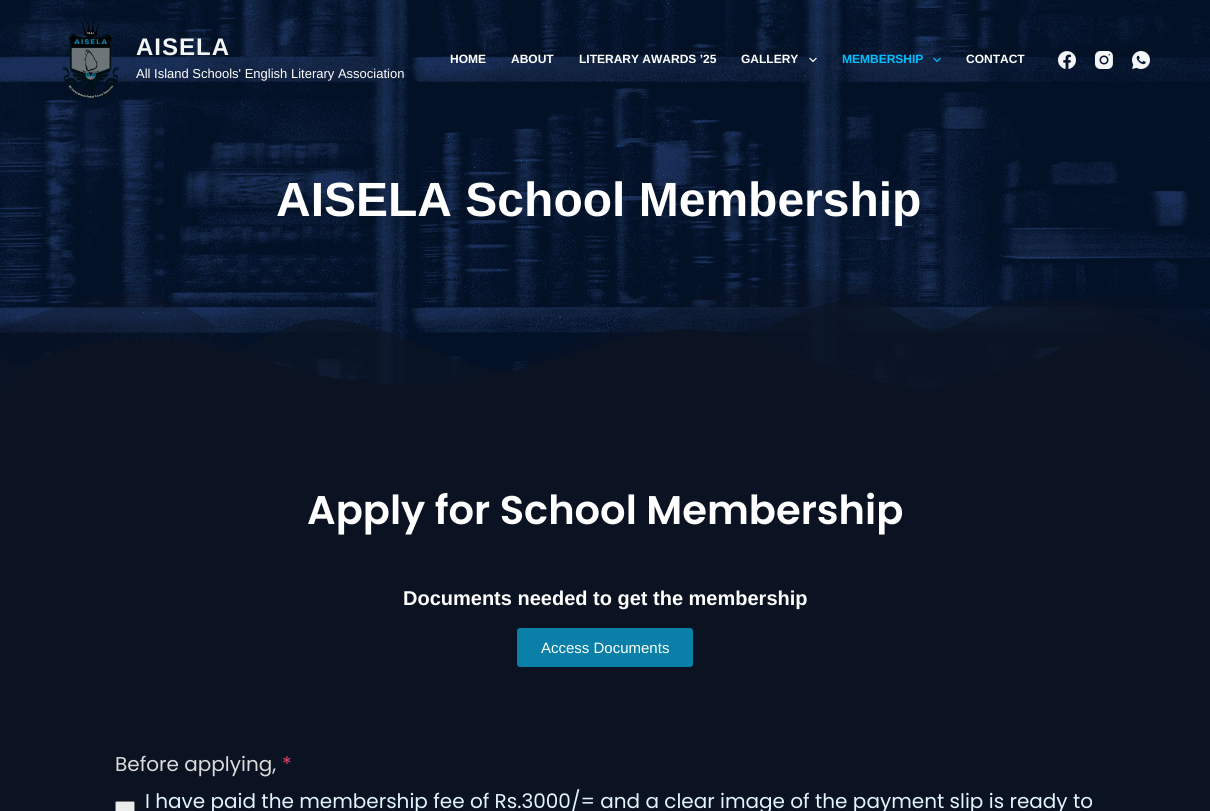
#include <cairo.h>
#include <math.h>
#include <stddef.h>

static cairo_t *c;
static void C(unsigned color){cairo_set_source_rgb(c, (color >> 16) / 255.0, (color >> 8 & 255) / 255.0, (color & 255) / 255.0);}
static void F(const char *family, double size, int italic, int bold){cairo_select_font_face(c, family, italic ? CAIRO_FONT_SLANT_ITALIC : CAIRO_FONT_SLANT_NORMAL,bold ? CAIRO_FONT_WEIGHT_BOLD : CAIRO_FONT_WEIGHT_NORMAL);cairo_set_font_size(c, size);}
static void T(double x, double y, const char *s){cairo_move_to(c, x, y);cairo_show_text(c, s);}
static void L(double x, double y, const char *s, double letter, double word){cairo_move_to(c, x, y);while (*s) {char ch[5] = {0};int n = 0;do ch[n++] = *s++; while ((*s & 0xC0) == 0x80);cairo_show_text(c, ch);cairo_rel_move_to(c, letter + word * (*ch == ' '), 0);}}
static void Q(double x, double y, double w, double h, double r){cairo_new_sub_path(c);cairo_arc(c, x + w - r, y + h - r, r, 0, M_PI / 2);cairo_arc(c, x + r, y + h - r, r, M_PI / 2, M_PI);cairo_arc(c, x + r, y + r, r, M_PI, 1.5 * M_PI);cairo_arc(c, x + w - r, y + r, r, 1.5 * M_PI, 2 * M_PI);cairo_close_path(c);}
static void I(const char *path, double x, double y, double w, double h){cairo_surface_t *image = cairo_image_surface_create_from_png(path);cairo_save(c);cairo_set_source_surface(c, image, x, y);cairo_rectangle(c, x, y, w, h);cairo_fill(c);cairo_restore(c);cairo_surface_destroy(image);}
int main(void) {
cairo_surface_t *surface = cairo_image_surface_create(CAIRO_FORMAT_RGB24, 1210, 811);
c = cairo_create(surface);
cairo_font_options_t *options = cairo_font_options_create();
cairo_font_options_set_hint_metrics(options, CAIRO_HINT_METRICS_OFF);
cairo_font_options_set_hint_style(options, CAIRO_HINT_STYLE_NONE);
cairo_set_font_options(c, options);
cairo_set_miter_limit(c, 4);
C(0x0b1322);
cairo_paint(c);
I("7.png",0,0,1210,400);
I("1.png",62,21,58,78);
F("Liberation Sans",24,0,1);
C(0xf4f5f6);
L(136,55,"AISELA",1,0);
F("Liberation Sans",13,0,0);
C(0xffffff);
T(136,78,"All Island Schools' English Literary Association");
F("Liberation Sans",12,0,1);
T(450,63,"HOME");
T(511,63,"ABOUT");
T(579,63,"LITERARY AWARDS ’25");
T(741,63,"GALLERY");
I("2.png",809,57,8,6);
C(0x00beff);
T(842,63,"MEMBERSHIP");
I("3.png",933,57,8,6);
C(0xffffff);
T(966,63,"CONTACT");
I("4.png",1058,51,18,18);
I("5.png",1095,51,18,18);
I("6.png",1132,51,18,18);
F("Liberation Sans",48,0,1);
T(276,216,"AISELA School Membership");
I("8.png",0,280,1210,120);
F("Poppins SemiBold",40,0,0);
T(307,524,"Apply for School Membership");
F("Liberation Sans",20,0,1);
T(403,605,"Documents needed to get the membership");
C(0x0a80a8);
Q(517,628,176,39,3);
cairo_fill(c);
F("Liberation Sans",15,0,0);
C(0xffffff);
T(541,653,"Access Documents");
F("Poppins",20,0,0);
C(0xdbdbdb);
T(115,771,"Before applying,");
C(0xe04562);
T(282,771,"*");
C(0xededed);
Q(115.5,801.5,19,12,1.5);
cairo_fill_preserve(c);
C(0x777771);
cairo_set_line_width(c,1);
cairo_stroke(c);
C(0xe2f4ff);
T(145,808,"I have paid the membership fee of Rs.3000/= and a clear image of the payment slip is ready to");
cairo_surface_write_to_png(surface, "o.png");
cairo_font_options_destroy(options);
cairo_destroy(c);
cairo_surface_destroy(surface);
return 0;
}
